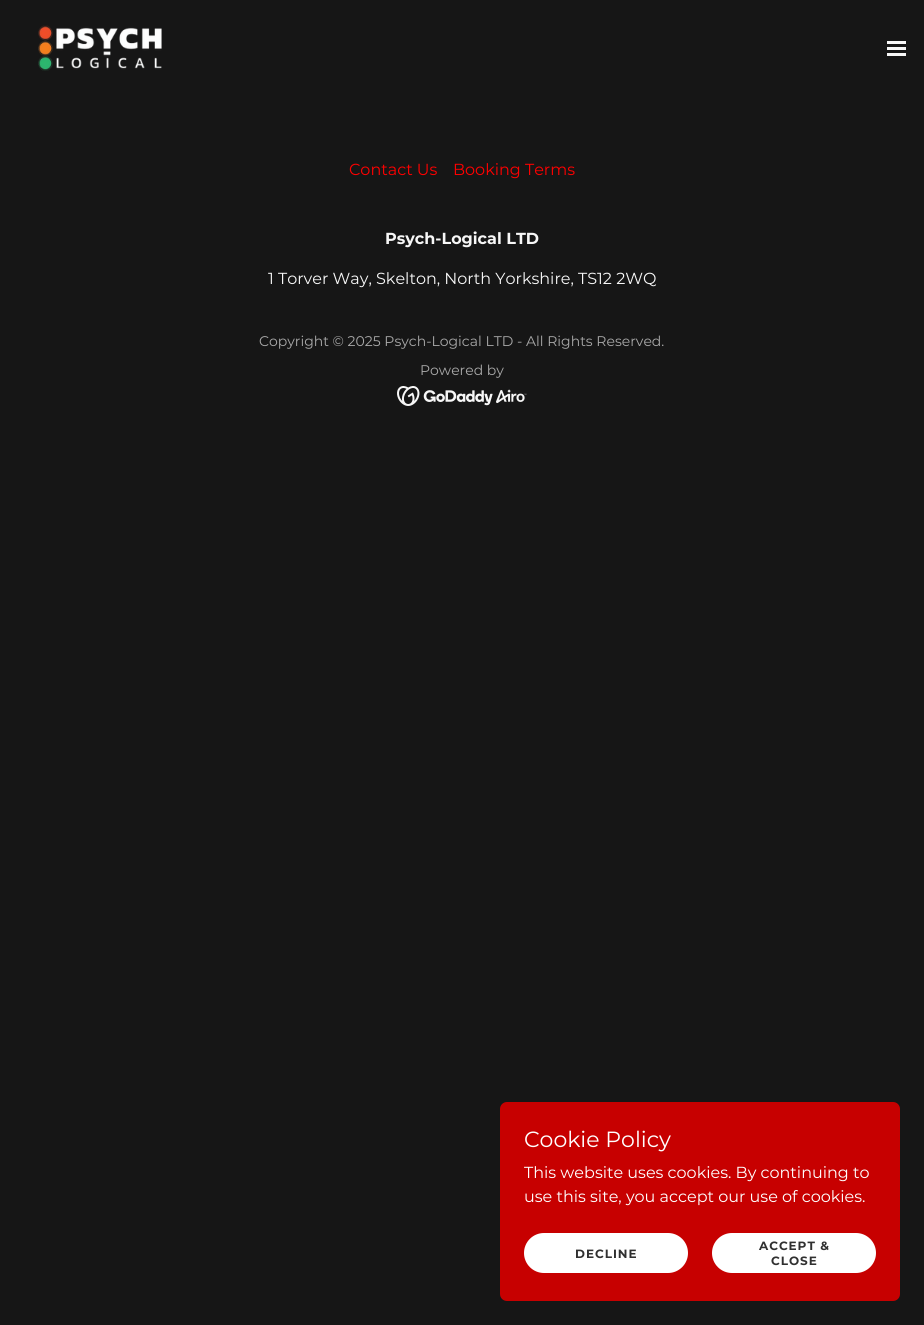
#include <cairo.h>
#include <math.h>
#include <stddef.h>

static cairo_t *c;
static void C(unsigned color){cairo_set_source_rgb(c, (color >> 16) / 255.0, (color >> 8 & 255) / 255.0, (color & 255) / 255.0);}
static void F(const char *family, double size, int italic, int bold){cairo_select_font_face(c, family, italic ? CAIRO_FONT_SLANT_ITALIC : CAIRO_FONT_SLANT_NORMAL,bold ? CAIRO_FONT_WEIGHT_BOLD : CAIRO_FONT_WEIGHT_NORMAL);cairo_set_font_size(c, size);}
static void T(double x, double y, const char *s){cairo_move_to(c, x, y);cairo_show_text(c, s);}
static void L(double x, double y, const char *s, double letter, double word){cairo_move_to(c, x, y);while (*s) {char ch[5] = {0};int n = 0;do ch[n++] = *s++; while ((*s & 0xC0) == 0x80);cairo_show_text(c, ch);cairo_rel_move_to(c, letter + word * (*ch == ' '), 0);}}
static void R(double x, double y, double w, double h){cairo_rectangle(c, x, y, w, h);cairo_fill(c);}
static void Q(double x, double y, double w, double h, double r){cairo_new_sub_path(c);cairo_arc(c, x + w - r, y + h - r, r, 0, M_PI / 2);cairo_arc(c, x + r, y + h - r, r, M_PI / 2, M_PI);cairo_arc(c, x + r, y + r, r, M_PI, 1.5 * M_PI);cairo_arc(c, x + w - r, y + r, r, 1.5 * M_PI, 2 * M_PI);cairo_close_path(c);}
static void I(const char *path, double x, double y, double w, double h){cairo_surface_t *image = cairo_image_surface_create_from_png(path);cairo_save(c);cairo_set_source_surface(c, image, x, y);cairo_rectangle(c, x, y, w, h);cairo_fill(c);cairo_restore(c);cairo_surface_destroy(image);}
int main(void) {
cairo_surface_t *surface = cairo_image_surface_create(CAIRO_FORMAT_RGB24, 924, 1325);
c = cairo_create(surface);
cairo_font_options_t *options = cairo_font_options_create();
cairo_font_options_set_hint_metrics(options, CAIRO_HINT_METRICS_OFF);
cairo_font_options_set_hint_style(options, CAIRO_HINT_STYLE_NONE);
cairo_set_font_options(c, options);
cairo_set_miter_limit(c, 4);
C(0x161616);
cairo_paint(c);
I("1.png",38,25,124,46);
C(0xf7f7f7);
R(887,41,19,3);
R(887,47,19,3);
R(887,53,19,3);
F("Montserrat",16,0,0);
C(0xff0000);
T(349,175,"Contact Us");
T(453,175,"Booking Terms");
F("Montserrat",16,0,1);
C(0xf7f7f7);
T(385,244,"Psych-Logical LTD");
F("Montserrat",16,0,0);
T(268,284,"1 Torver Way, Skelton, North Yorkshire, TS12 2WQ");
F("Montserrat",14,0,0);
C(0xa9a9a9);
T(259,346,"Copyright © 2025 Psych-Logical LTD - All Rights Reserved.");
T(420,375,"Powered by");
I("2.png",397,386,130,20);
C(0xc70000);
Q(500,1102,400,199,7);
cairo_fill(c);
F("Montserrat",22,0,0);
C(0xffffff);
T(524,1147,"Cookie Policy");
F("Montserrat",16,0,0);
T(524,1178,"This website uses cookies. By continuing to");
T(524,1202,"use this site, you accept our use of cookies.");
Q(524,1233,164,40,20);
cairo_fill(c);
F("Montserrat",12,0,1);
C(0x303030);
L(575,1258,"DECLINE",1,0);
C(0xffffff);
Q(712,1233,164,40,20);
cairo_fill(c);
C(0x303030);
L(759,1250,"ACCEPT &",1,0);
L(771,1265,"CLOSE",1,0);
cairo_surface_write_to_png(surface, "o.png");
cairo_font_options_destroy(options);
cairo_destroy(c);
cairo_surface_destroy(surface);
return 0;
}
